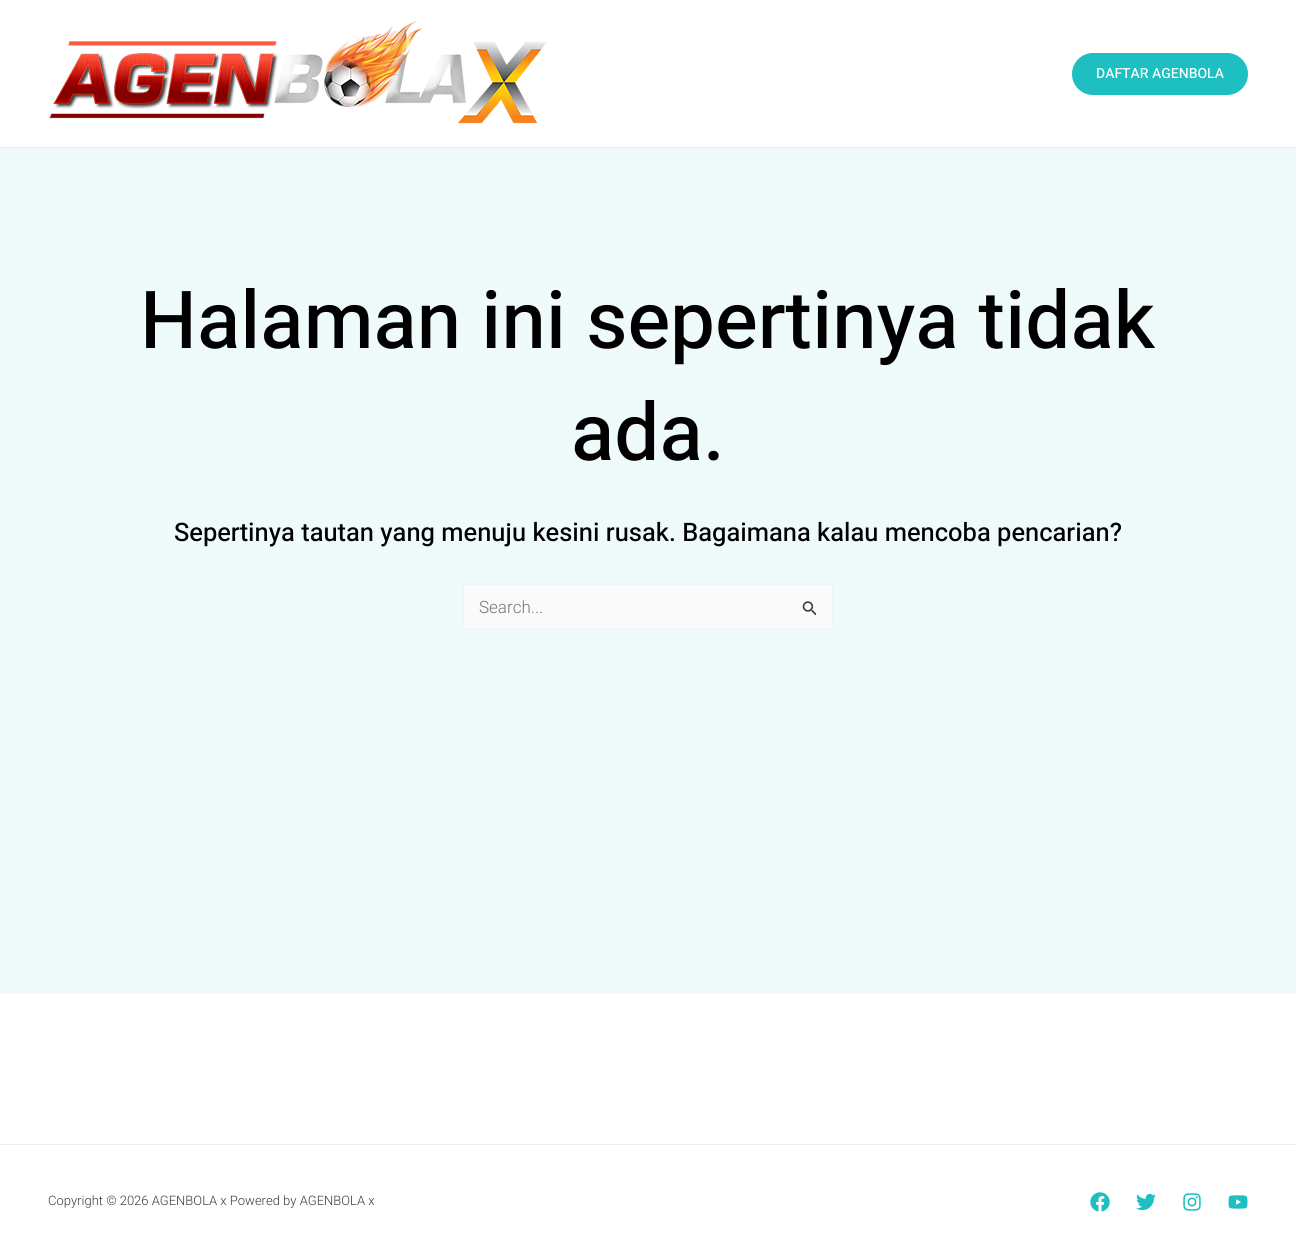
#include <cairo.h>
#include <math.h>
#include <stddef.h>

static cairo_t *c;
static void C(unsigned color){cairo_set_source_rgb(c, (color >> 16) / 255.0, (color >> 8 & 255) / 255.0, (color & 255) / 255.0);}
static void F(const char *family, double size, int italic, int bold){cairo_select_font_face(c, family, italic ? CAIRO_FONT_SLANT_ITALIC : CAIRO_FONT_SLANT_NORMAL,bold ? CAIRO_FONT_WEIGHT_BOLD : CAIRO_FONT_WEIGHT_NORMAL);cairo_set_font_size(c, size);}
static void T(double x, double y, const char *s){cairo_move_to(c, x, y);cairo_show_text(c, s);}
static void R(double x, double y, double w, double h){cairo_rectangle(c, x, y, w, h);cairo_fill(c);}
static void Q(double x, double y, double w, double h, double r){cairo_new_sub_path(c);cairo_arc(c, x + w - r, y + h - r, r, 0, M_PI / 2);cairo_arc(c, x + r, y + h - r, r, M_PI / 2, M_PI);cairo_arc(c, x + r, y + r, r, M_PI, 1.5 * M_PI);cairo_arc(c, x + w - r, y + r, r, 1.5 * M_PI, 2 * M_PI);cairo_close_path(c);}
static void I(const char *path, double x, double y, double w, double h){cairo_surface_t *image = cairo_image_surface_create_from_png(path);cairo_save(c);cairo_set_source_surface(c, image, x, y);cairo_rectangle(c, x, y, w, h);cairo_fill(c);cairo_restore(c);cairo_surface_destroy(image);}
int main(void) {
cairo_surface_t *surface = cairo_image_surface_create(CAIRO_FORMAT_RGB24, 1296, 1257);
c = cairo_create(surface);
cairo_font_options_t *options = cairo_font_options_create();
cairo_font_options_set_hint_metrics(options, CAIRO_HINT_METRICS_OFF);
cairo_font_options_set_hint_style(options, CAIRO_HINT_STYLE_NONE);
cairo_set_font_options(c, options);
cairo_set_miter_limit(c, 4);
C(0xeffafa);
cairo_paint(c);
C(0xffffff);
R(0,0,1296,147);
C(0xeaeaea);
R(0,147,1296,1);
I("1.png",49,20,498,104);
C(0x1dbfc1);
Q(1073,54,174,40,20);
cairo_fill_preserve(c);
cairo_stroke(c);
F("Heebo Medium",14,0,0);
C(0xffffff);
T(1096,78,"DAFTAR AGENBOLA");
F("Heebo Medium",80,0,0);
C(0x000000);
T(140,348,"Halaman ini sepertinya tidak");
T(571,460,"ada.");
F("Heebo Medium",25.5,0,0);
T(174,541,"Sepertinya tautan yang menuju kesini rusak. Bagaimana kalau mencoba pencarian?");
C(0xfafafa);
Q(463.5,584.5,369,45,1.5);
cairo_fill_preserve(c);
C(0xf2f2f2);
cairo_set_line_width(c,1);
cairo_stroke(c);
F("Roboto Light",17,0,0);
C(0x757575);
T(479,613,"Search...");
I("2.png",802,601,14,15);
C(0xffffff);
R(0,994,1296,150);
R(0,1145,1296,112);
C(0xededed);
R(0,1144,1296,1);
F("Roboto Light",13,0,0);
C(0x3a3a3a);
T(48,1205,"Copyright © 2026 AGENBOLA x Powered by AGENBOLA x");
I("3.png",1090,1192,20,20);
I("4.png",1136,1193,20,18);
I("5.png",1183,1193,18,18);
I("6.png",1228,1195,20,14);
cairo_surface_write_to_png(surface, "o.png");
cairo_font_options_destroy(options);
cairo_destroy(c);
cairo_surface_destroy(surface);
return 0;
}
